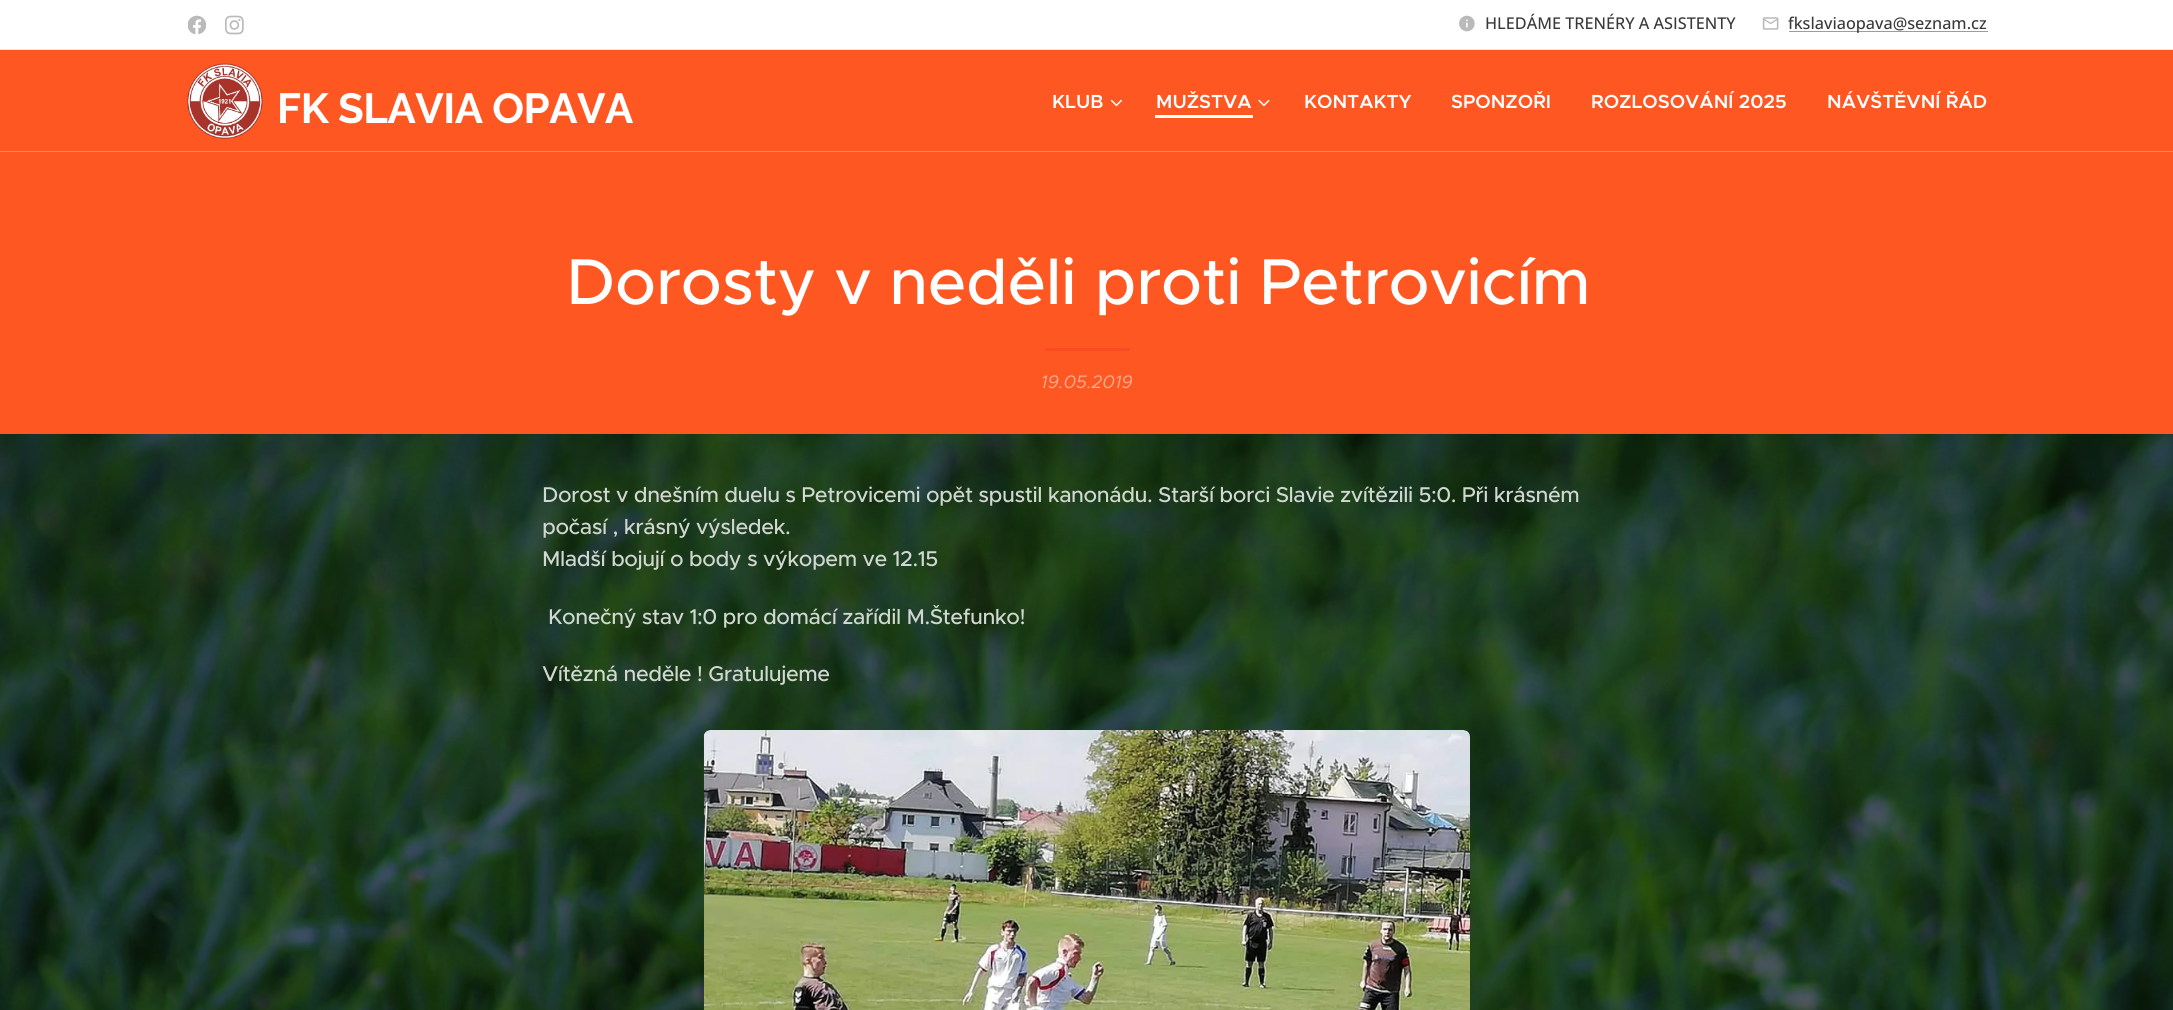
#include <cairo.h>
#include <math.h>
#include <stddef.h>

static cairo_t *c;
static void C(unsigned color){cairo_set_source_rgb(c, (color >> 16) / 255.0, (color >> 8 & 255) / 255.0, (color & 255) / 255.0);}
static void F(const char *family, double size, int italic, int bold){cairo_select_font_face(c, family, italic ? CAIRO_FONT_SLANT_ITALIC : CAIRO_FONT_SLANT_NORMAL,bold ? CAIRO_FONT_WEIGHT_BOLD : CAIRO_FONT_WEIGHT_NORMAL);cairo_set_font_size(c, size);}
static void T(double x, double y, const char *s){cairo_move_to(c, x, y);cairo_show_text(c, s);}
static void L(double x, double y, const char *s, double letter, double word){cairo_move_to(c, x, y);while (*s) {char ch[5] = {0};int n = 0;do ch[n++] = *s++; while ((*s & 0xC0) == 0x80);cairo_show_text(c, ch);cairo_rel_move_to(c, letter + word * (*ch == ' '), 0);}}
static void R(double x, double y, double w, double h){cairo_rectangle(c, x, y, w, h);cairo_fill(c);}
static void I(const char *path, double x, double y, double w, double h){cairo_surface_t *image = cairo_image_surface_create_from_png(path);cairo_save(c);cairo_set_source_surface(c, image, x, y);cairo_rectangle(c, x, y, w, h);cairo_fill(c);cairo_restore(c);cairo_surface_destroy(image);}
int main(void) {
cairo_surface_t *surface = cairo_image_surface_create(CAIRO_FORMAT_RGB24, 2173, 1010);
c = cairo_create(surface);
cairo_font_options_t *options = cairo_font_options_create();
cairo_font_options_set_hint_metrics(options, CAIRO_HINT_METRICS_OFF);
cairo_font_options_set_hint_style(options, CAIRO_HINT_STYLE_NONE);
cairo_set_font_options(c, options);
cairo_set_miter_limit(c, 4);
C(0xffffff);
cairo_paint(c);
I("1.png",188,15,18,20);
I("2.png",225,15,19,20);
I("3.png",1459,15,16,17);
F("Open Sans Medium",16.25,0,0);
C(0x393939);
T(1485,29,"HLEDÁME TRENÉRY A ASISTENTY");
I("4.png",1762,17,17,13);
C(0x9c9c9c);
R(1789,31,199,1);
C(0x393939);
T(1788,29,"fkslaviaopava@seznam.cz");
C(0xe8e8e8);
R(0,49,2173,1);
C(0xff5722);
R(0,50,2173,384);
I("5.png",187,63,76,76);
F("Raleway",42,0,1);
C(0xffffff);
L(277,123,"FK SLAVIA OPAVA",-.43,0);
F("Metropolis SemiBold",19,0,0);
T(1052,108,"KLUB");
I("6.png",1110,99,12,8);
T(1156,108,"MUŽSTVA");
R(1155,115,98,3);
I("7.png",1258,99,12,8);
T(1304,108,"KONTAKTY");
T(1451,108,"SPONZOŘI");
T(1591,108,"ROZLOSOVÁNÍ 2025");
T(1827,108,"NÁVŠTĚVNÍ ŘÁD");
C(0xff8964);
R(0,151,2173,1);
F("Metropolis Medium",65,0,0);
C(0xffffff);
L(566,304,"Dorosty v neděli proti Petrovicím",-.43,0);
C(0xfa4b24);
R(1045,348,85,3);
F("Metropolis",18.25,1,0);
C(0xffab91);
T(1041,388,"19.05.2019");
I("8.png",0,433,2173,577);
F("Metropolis Medium",21.5,0,0);
C(0xd1d7d1);
L(542,502,"Dorost v dnešním duelu s Petrovicemi opět spustil kanonádu. Starší borci Slavie zvítězili 5:0. Při krásném",-.43,0);
L(542,534,"počasí , krásný výsledek.",-.43,0);
L(542,566,"Mladší bojují o body s výkopem ve 12.15",-.43,0);
L(548,624,"Konečný stav 1:0 pro domácí zařídil M.Štefunko!",-.43,0);
L(542,681,"Vítězná neděle ! Gratulujeme",-.43,0);
I("9.png",703,730,767,280);
cairo_surface_write_to_png(surface, "o.png");
cairo_font_options_destroy(options);
cairo_destroy(c);
cairo_surface_destroy(surface);
return 0;
}
